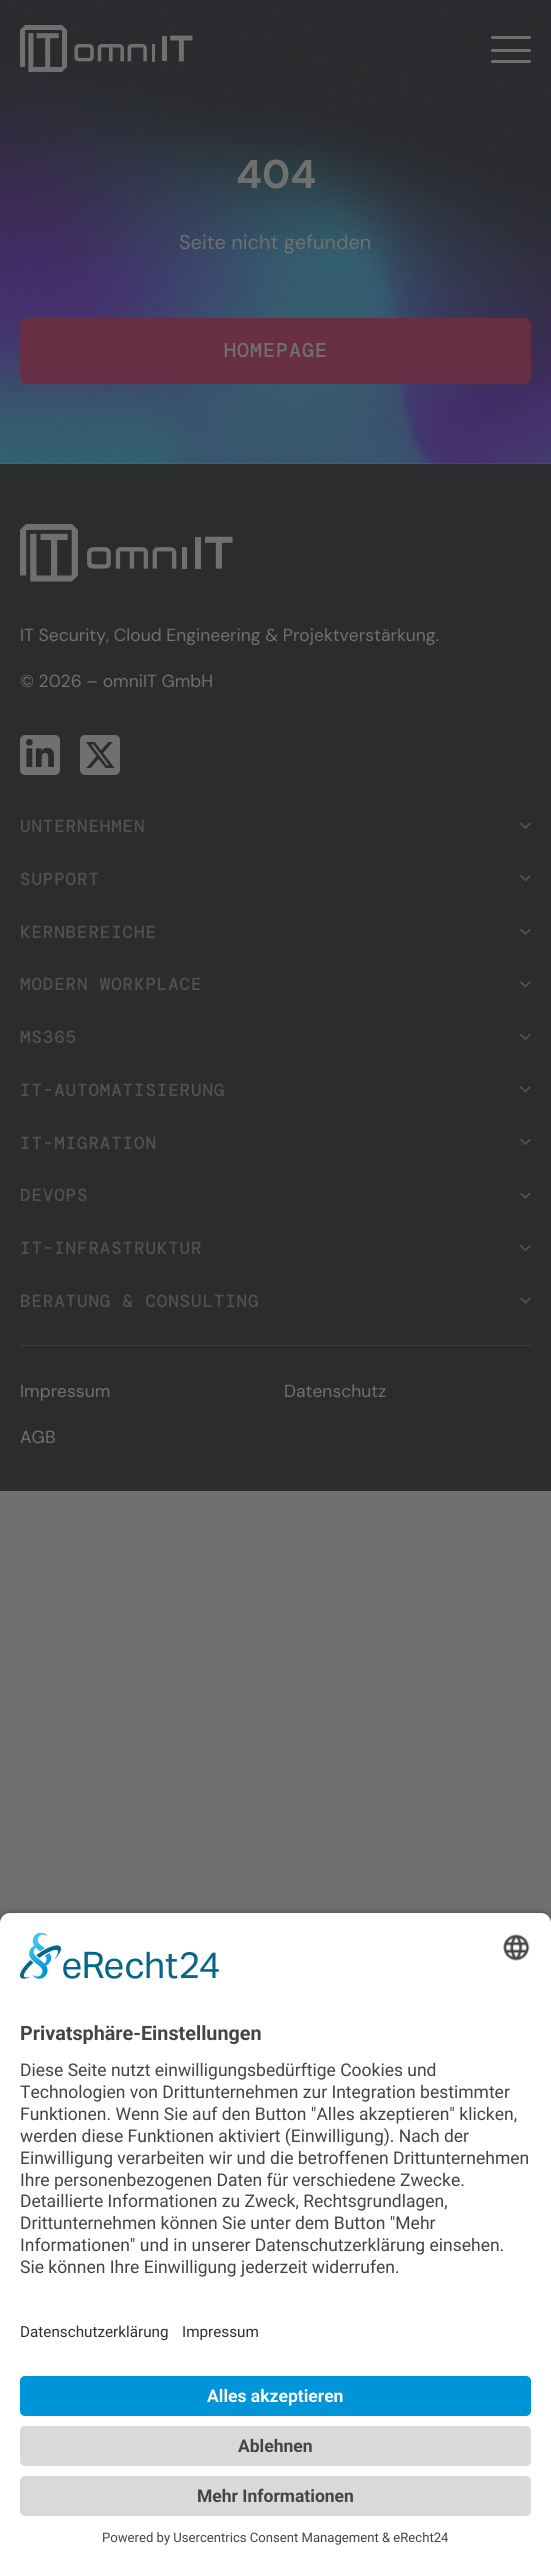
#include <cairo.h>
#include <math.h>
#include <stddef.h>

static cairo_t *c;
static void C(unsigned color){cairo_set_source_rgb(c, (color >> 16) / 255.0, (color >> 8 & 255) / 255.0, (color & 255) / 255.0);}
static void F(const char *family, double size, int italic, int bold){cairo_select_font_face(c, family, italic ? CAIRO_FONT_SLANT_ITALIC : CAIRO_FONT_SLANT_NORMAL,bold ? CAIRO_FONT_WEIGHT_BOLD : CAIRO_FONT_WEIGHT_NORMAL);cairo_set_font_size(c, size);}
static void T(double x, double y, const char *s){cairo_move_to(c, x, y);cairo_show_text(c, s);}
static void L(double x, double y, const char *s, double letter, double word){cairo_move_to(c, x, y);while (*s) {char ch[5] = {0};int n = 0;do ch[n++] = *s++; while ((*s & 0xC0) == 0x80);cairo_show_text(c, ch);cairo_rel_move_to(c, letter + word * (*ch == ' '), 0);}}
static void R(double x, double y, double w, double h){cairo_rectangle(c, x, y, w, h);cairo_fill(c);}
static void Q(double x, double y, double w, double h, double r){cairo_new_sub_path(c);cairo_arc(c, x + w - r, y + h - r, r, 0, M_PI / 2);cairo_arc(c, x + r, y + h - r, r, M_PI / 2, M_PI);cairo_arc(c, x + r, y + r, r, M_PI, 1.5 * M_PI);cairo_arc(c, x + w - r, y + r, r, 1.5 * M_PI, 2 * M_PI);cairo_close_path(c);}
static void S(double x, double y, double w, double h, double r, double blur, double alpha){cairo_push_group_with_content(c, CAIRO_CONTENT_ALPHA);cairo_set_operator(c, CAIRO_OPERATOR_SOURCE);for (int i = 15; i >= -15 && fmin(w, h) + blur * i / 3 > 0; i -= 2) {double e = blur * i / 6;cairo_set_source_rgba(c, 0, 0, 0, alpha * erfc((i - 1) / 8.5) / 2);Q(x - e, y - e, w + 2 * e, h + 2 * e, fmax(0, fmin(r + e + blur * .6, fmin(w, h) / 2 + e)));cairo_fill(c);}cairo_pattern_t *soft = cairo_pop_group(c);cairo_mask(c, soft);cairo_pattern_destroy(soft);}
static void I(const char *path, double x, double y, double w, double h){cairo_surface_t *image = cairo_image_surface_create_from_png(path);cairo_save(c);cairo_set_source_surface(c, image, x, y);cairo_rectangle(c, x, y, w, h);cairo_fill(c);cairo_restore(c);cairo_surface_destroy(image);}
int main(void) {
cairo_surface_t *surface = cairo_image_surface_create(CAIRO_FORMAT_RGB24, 551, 2566);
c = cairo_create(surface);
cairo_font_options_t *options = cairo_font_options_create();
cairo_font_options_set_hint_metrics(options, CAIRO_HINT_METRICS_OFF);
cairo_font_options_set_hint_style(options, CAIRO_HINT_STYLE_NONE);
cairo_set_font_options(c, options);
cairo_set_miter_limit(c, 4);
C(0x707070);
cairo_paint(c);
I("2.png",0,0,551,464);
I("1.png",20,25,173,47);
C(0x707070);
Q(491,36,40,3,1.5);
cairo_fill(c);
Q(491,49,40,3,1.5);
cairo_fill(c);
Q(491,60,40,3,1.5);
cairo_fill(c);
F("DM Sans",40,0,1);
T(236,188,"404");
F("DM Sans",20,0,0);
T(179,249,"Seite nicht gefunden");
C(0x682e43);
Q(20.5,318.5,510,65,7.5);
cairo_fill_preserve(c);
cairo_set_line_width(c,1);
cairo_stroke(c);
F("DM Mono Medium",20,0,0);
C(0x707070);
L(224,357,"HOMEPAGE",1,0);
C(0x2a2c2e);
R(0,464,551,1027);
I("3.png",20,524,213,58);
F("DM Sans",17.5,0,0);
C(0x707070);
T(20,641,"IT Security, Cloud Engineering & Projektverstärkung.");
T(20,687,"© 2026 – omniIT GmbH");
Q(20,735,40,40,5);
cairo_fill(c);
I("4.png",26,739,28,28);
Q(80,735,40,40,5);
cairo_fill(c);
I("5.png",85,742,30,26);
F("DM Mono Medium",17.5,0,0);
C(0x515153);
L(20,832,"UNTERNEHMEN",.9,0);
I("6.png",520,823,11,6);
L(20,885,"SUPPORT",.9,0);
I("7.png",520,875,11,6);
L(20,938,"KERNBEREICHE",.9,0);
I("8.png",520,929,11,6);
L(20,990,"MODERN WORKPLACE",.9,0);
I("9.png",520,981,11,7);
L(20,1043,"MS365",.9,0);
I("8.png",520,1034,11,6);
L(20,1096,"IT-AUTOMATISIERUNG",.9,0);
I("9.png",520,1086,11,7);
L(20,1149,"IT-MIGRATION",.9,0);
I("8.png",520,1139,11,6);
L(20,1201,"DEVOPS",.9,0);
I("6.png",520,1193,11,6);
L(20,1254,"IT-INFRASTRUKTUR",.9,0);
I("7.png",520,1245,11,6);
L(20,1307,"BERATUNG & CONSULTING",.9,0);
I("6.png",520,1298,11,6);
C(0x3c3d3f);
R(20,1345,511,1);
F("DM Sans",17.5,0,0);
C(0x707070);
T(20,1397,"Impressum");
T(284,1397,"Datenschutz");
T(20,1443,"AGB");
C(0x000000);
S(0,1916,551,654,10,4.5,.8);
C(0xffffff);
cairo_new_path(c);
cairo_move_to(c,10,1913);
cairo_line_to(c,541,1913);
cairo_curve_to(c,546.5,1913,551,1917.5,551,1923);
cairo_line_to(c,551,2304);
cairo_line_to(c,0,2304);
cairo_line_to(c,0,1923);
cairo_curve_to(c,0,1917.5,4.5,1913,10,1913);
cairo_close_path(c);
cairo_fill(c);
I("10.png",20,1933,199,46);
I("11.png",503,1934,27,27);
F("Roboto",19.75,0,1);
C(0x444444);
T(20,2040,"Privatsphäre-Einstellungen");
F("Roboto",17.5,0,0);
T(20,2076,"Diese Seite nutzt einwilligungsbedürftige Cookies und");
T(20,2098,"Technologien von Drittunternehmen zur Integration bestimmter");
T(20,2120,"Funktionen. Wenn Sie auf den Button \"Alles akzeptieren\" klicken,");
T(20,2142,"werden diese Funktionen aktiviert (Einwilligung). Nach der");
T(20,2164,"Einwilligung verarbeiten wir und die betroffenen Drittunternehmen");
T(20,2186,"Ihre personenbezogenen Daten für verschiedene Zwecke.");
T(20,2207,"Detaillierte Informationen zu Zweck, Rechtsgrundlagen,");
T(20,2229,"Drittunternehmen können Sie unter dem Button \"Mehr");
T(20,2251,"Informationen\" und in unserer Datenschutzerklärung einsehen.");
T(20,2273,"Sie können Ihre Einwilligung jederzeit widerrufen.");
C(0xffffff);
R(0,2304,551,262);
F("Roboto",15.25,0,0);
C(0x303030);
T(20,2337,"Datenschutzerklärung");
T(182,2337,"Impressum");
C(0x0094d8);
Q(20,2376,511,40,5);
cairo_fill(c);
F("Roboto",17.5,0,1);
C(0xffffff);
T(207,2402,"Alles akzeptieren");
C(0xd9d9d9);
Q(20,2426,511,40,5);
cairo_fill(c);
C(0x444444);
T(238,2452,"Ablehnen");
C(0xd9d9d9);
Q(20,2476,511,40,5);
cairo_fill(c);
C(0x444444);
T(197,2502,"Mehr Informationen");
F("Roboto",13.1,0,0);
T(102,2542,"Powered by Usercentrics Consent Management & eRecht24");
cairo_surface_write_to_png(surface, "o.png");
cairo_font_options_destroy(options);
cairo_destroy(c);
cairo_surface_destroy(surface);
return 0;
}
